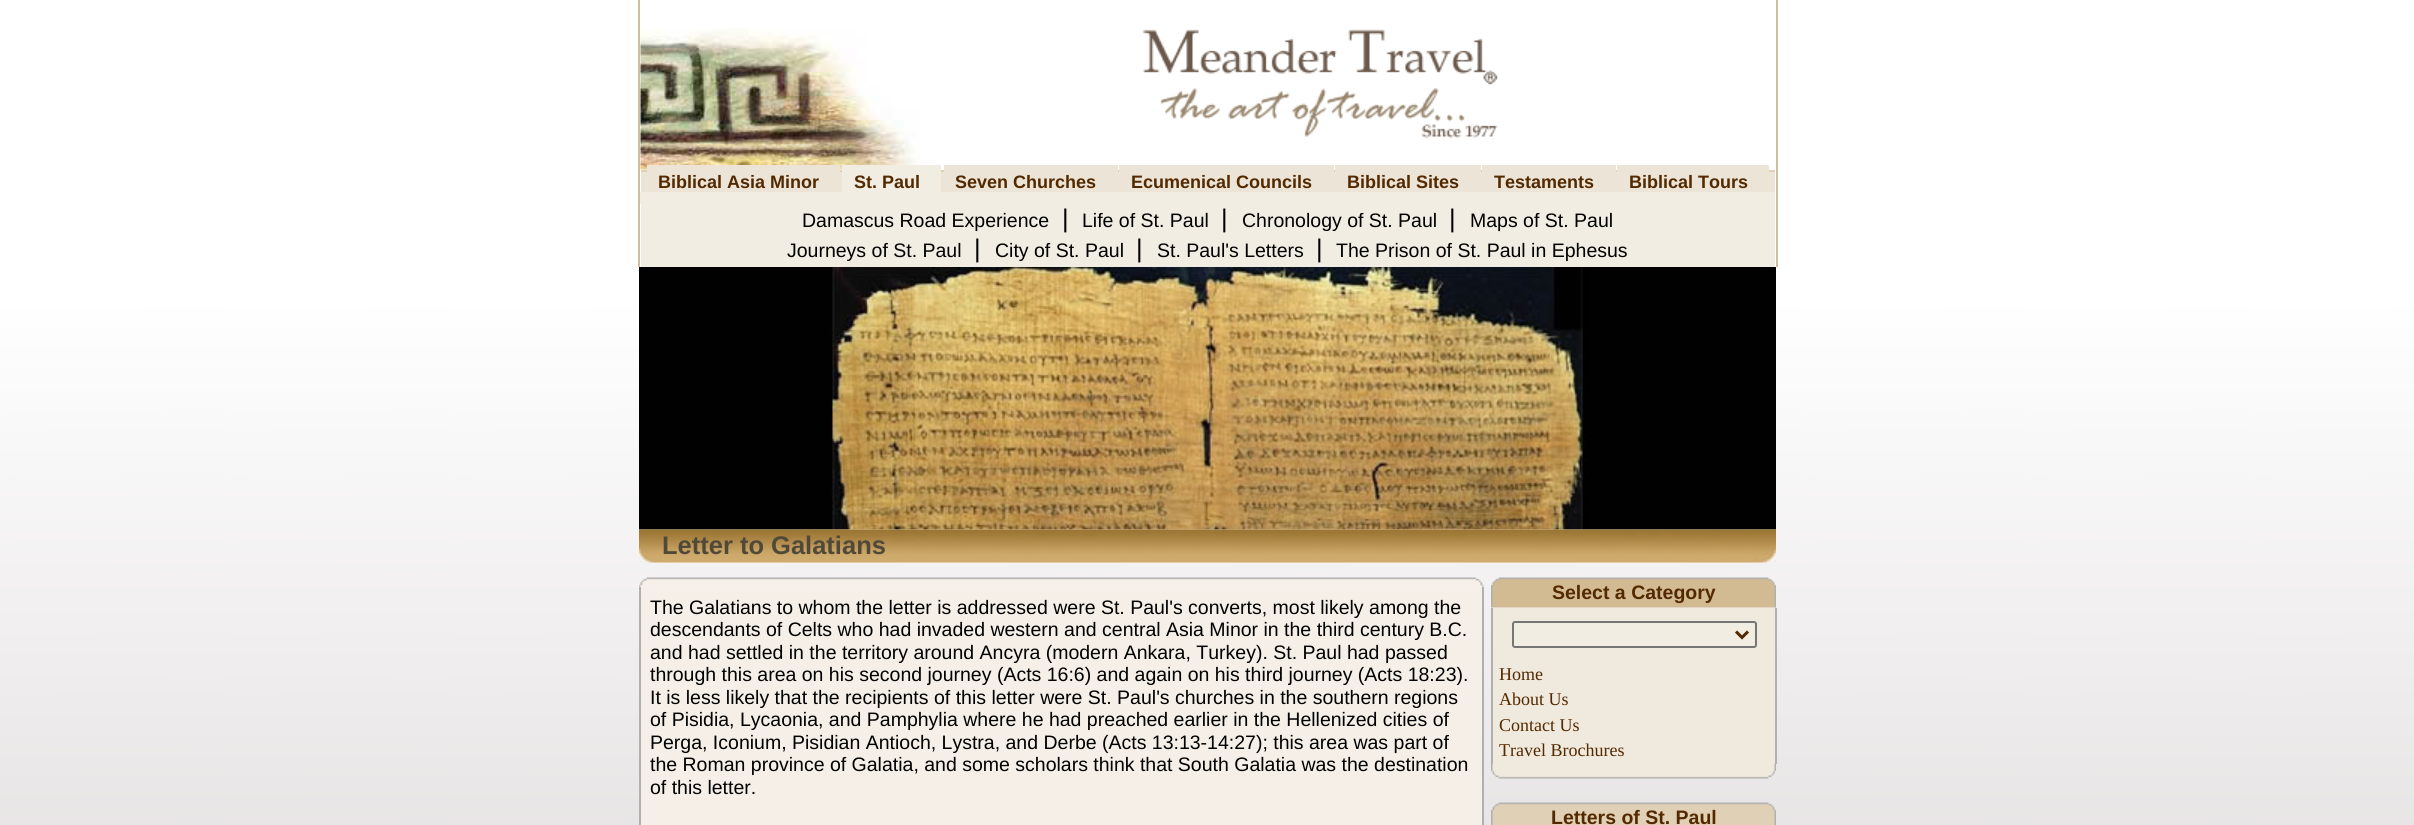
#include <cairo.h>
#include <math.h>
#include <stddef.h>

static cairo_t *c;
static void C(unsigned color){cairo_set_source_rgb(c, (color >> 16) / 255.0, (color >> 8 & 255) / 255.0, (color & 255) / 255.0);}
static void F(const char *family, double size, int italic, int bold){cairo_select_font_face(c, family, italic ? CAIRO_FONT_SLANT_ITALIC : CAIRO_FONT_SLANT_NORMAL,bold ? CAIRO_FONT_WEIGHT_BOLD : CAIRO_FONT_WEIGHT_NORMAL);cairo_set_font_size(c, size);}
static void T(double x, double y, const char *s){cairo_move_to(c, x, y);cairo_show_text(c, s);}
static void R(double x, double y, double w, double h){cairo_rectangle(c, x, y, w, h);cairo_fill(c);}
static void Q(double x, double y, double w, double h, double r){cairo_new_sub_path(c);cairo_arc(c, x + w - r, y + h - r, r, 0, M_PI / 2);cairo_arc(c, x + r, y + h - r, r, M_PI / 2, M_PI);cairo_arc(c, x + r, y + r, r, M_PI, 1.5 * M_PI);cairo_arc(c, x + w - r, y + r, r, 1.5 * M_PI, 2 * M_PI);cairo_close_path(c);}
static void I(const char *path, double x, double y, double w, double h){cairo_surface_t *image = cairo_image_surface_create_from_png(path);cairo_save(c);cairo_set_source_surface(c, image, x, y);cairo_rectangle(c, x, y, w, h);cairo_fill(c);cairo_restore(c);cairo_surface_destroy(image);}
int main(void) {
cairo_surface_t *surface = cairo_image_surface_create(CAIRO_FORMAT_RGB24, 2414, 825);
c = cairo_create(surface);
cairo_font_options_t *options = cairo_font_options_create();
cairo_font_options_set_hint_metrics(options, CAIRO_HINT_METRICS_OFF);
cairo_font_options_set_hint_style(options, CAIRO_HINT_STYLE_NONE);
cairo_set_font_options(c, options);
cairo_set_miter_limit(c, 4);
C(0xffffff);
cairo_paint(c);
I("1.png",0,0,2414,825);
C(0xcec09e);
R(1776,0,2,267);
R(638,0,2,267);
I("2.png",640,28,280,142);
I("3.png",1142,29,356,110);
C(0xece4d7);
R(641,172,1134,20);
C(0xe0d0b6);
R(641,170,1134,2);
F("Liberation Sans",18,0,1);
C(0x532900);
T(658,188,"Biblical Asia Minor");
C(0xece4d7);
R(647,165,193,7);
C(0xf2ede3);
R(842,165,99,27);
C(0x532900);
T(854,188,"St. Paul");
T(955,188,"Seven Churches");
C(0xece4d7);
R(944,165,174,7);
C(0x532900);
T(1131,188,"Ecumenical Councils");
C(0xece4d7);
R(1119,165,215,7);
C(0x532900);
T(1347,188,"Biblical Sites");
C(0xece4d7);
R(1335,165,146,7);
C(0x532900);
T(1494,188,"Testaments");
C(0xece4d7);
R(1482,165,134,7);
C(0x532900);
T(1629,188,"Biblical Tours");
C(0xece4d7);
R(1617,165,152,7);
C(0xf2ede3);
R(640,192,1135,12);
R(641,204,1134,63);
F("Liberation Sans",19.5,0,0);
C(0x000000);
T(802,227,"Damascus Road Experience");
F("Liberation Sans",25.5,0,0);
T(1062,227,"|");
F("Liberation Sans",19.5,0,0);
T(1082,227,"Life of St. Paul");
F("Liberation Sans",25.5,0,0);
T(1221,227,"|");
F("Liberation Sans",19.5,0,0);
T(1242,227,"Chronology of St. Paul");
F("Liberation Sans",25.5,0,0);
T(1449,227,"|");
F("Liberation Sans",19.5,0,0);
T(1470,227,"Maps of St. Paul");
T(787,257,"Journeys of St. Paul");
F("Liberation Sans",25.5,0,0);
T(974,257,"|");
F("Liberation Sans",19.5,0,0);
T(995,257,"City of St. Paul");
F("Liberation Sans",25.5,0,0);
T(1136,257,"|");
F("Liberation Sans",19.5,0,0);
T(1157,257,"St. Paul's Letters");
F("Liberation Sans",25.5,0,0);
T(1316,257,"|");
F("Liberation Sans",19.5,0,0);
T(1336,257,"The Prison of St. Paul in Ephesus");
I("4.png",639,267,1137,263);
I("5.png",639,529,1137,34);
F("Liberation Sans",25.5,0,1);
C(0x504939);
T(662,554,"Letter to Galatians");
I("6.png",639,577,845,10);
C(0xf5efe7);
R(641,587,841,238);
C(0xb0b0b0);
R(1482,587,2,238);
R(639,587,2,238);
F("Liberation Sans",19.5,0,0);
C(0x000000);
T(650,614,"The Galatians to whom the letter is addressed were St. Paul's converts, most likely among the");
T(650,636,"descendants of Celts who had invaded western and central Asia Minor in the third century B.C.");
T(650,659,"and had settled in the territory around Ancyra (modern Ankara, Turkey). St. Paul had passed");
T(650,681,"through this area on his second journey (Acts 16:6) and again on his third journey (Acts 18:23).");
T(650,704,"It is less likely that the recipients of this letter were St. Paul's churches in the southern regions");
T(650,726,"of Pisidia, Lycaonia, and Pamphylia where he had preached earlier in the Hellenized cities of");
T(650,749,"Perga, Iconium, Pisidian Antioch, Lystra, and Derbe (Acts 13:13-14:27); this area was part of");
T(650,771,"the Roman province of Galatia, and some scholars think that South Galatia was the destination");
T(650,794,"of this letter.");
I("7.png",1491,577,285,31);
F("Liberation Sans",19.5,0,1);
C(0x532900);
T(1552,599,"Select a Category");
C(0xf0e9dd);
R(1493,608,282,156);
C(0xb0b0b0);
R(1775,608,2,156);
R(1491,608,2,156);
C(0xf2ede3);
Q(1513,622,243,25,2);
cairo_fill_preserve(c);
C(0x767676);
cairo_stroke(c);
cairo_new_path(c);
cairo_move_to(c,1736,631.5);
cairo_line_to(c,1742,637.5);
cairo_line_to(c,1748,631.5);
C(0x532900);
cairo_set_line_width(c,3);
cairo_stroke(c);
F("Liberation Serif",18,0,0);
T(1499,680,"Home");
T(1499,705,"About Us");
T(1499,731,"Contact Us");
T(1499,756,"Travel Brochures");
I("8.png",1491,763,285,16);
I("9.png",1491,802,285,23);
F("Liberation Sans",19.5,0,1);
T(1551,824,"Letters of St. Paul");
cairo_surface_write_to_png(surface, "o.png");
cairo_font_options_destroy(options);
cairo_destroy(c);
cairo_surface_destroy(surface);
return 0;
}
